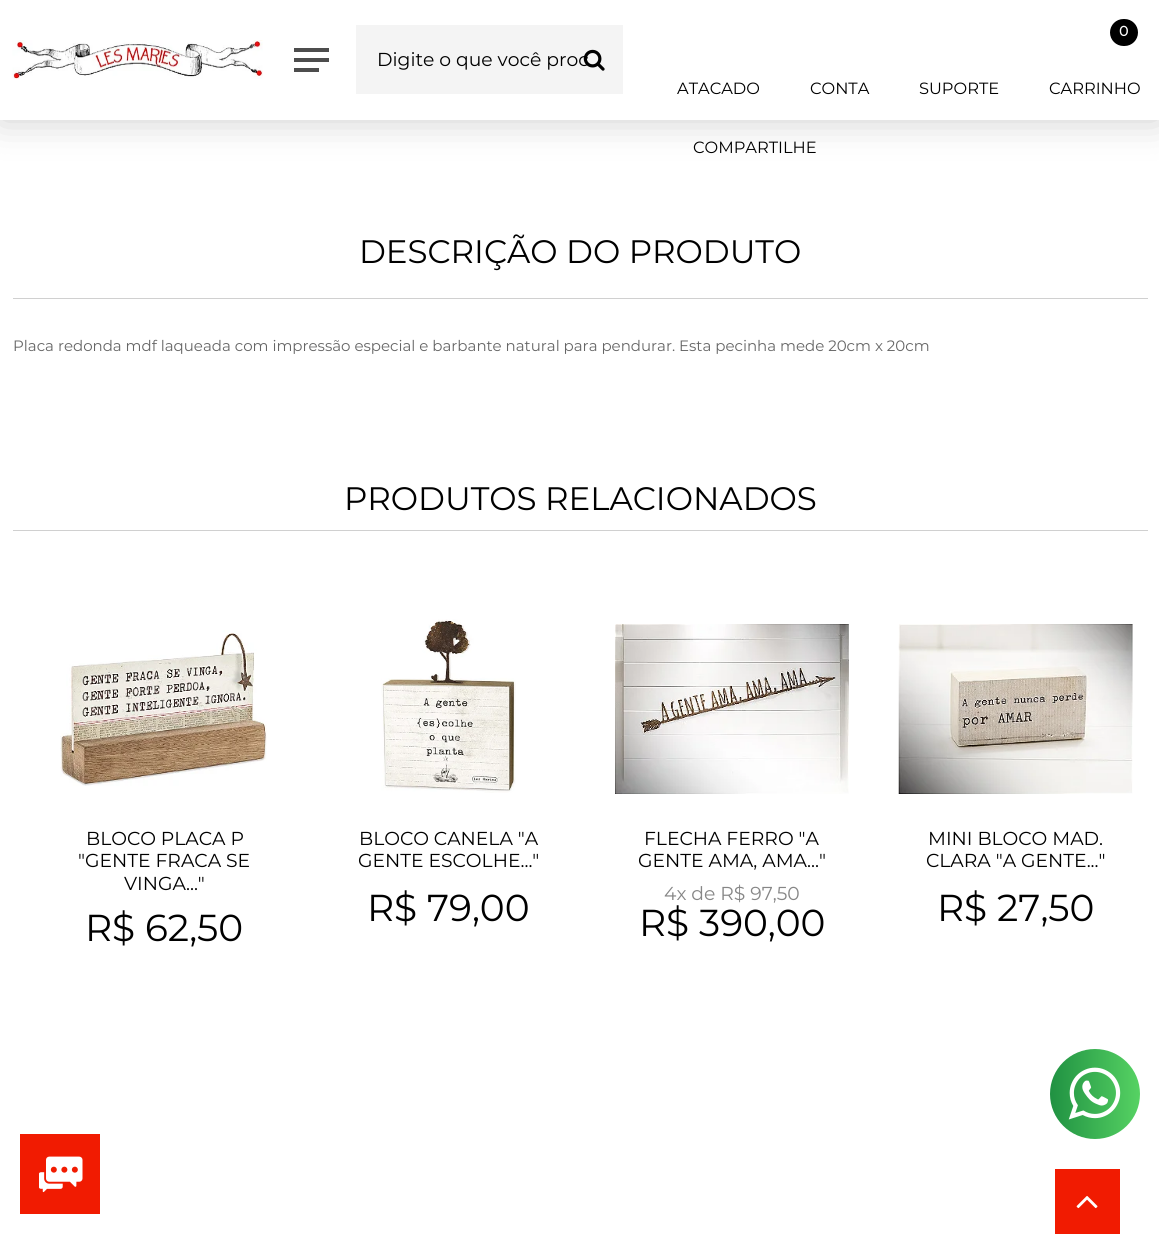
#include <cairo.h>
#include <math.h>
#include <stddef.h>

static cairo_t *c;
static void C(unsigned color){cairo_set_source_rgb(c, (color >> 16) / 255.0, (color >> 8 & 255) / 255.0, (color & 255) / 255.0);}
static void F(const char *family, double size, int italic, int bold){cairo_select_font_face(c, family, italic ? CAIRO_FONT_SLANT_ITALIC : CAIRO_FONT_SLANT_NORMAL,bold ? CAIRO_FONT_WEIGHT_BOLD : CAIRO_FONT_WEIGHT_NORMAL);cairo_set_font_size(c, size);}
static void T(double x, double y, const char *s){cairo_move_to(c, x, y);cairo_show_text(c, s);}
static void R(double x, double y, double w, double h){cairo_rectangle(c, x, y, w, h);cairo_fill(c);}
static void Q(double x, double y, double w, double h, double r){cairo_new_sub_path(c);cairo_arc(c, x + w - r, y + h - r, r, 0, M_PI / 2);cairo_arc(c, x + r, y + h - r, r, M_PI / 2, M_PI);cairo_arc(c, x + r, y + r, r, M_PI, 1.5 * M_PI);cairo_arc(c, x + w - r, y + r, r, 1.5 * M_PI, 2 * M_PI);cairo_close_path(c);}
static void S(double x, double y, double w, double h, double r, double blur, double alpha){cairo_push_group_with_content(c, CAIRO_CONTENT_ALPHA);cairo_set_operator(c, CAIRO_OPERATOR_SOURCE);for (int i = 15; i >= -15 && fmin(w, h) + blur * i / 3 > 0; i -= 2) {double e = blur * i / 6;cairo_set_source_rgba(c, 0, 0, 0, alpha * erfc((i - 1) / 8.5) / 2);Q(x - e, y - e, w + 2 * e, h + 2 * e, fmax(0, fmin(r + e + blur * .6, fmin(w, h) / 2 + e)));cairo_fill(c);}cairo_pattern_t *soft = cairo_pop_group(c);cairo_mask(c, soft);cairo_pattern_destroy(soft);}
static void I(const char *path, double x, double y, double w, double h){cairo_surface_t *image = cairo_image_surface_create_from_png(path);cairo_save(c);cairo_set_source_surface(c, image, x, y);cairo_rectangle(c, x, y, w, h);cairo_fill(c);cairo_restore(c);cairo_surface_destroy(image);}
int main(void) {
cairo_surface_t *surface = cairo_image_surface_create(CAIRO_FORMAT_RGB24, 1159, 1253);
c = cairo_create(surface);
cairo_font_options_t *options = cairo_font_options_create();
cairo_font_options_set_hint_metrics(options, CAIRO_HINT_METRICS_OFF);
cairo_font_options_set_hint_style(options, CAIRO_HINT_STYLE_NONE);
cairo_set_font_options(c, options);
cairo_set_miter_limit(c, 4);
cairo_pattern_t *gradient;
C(0xffffff);
cairo_paint(c);
C(0x000000);
S(0,0,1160,120,0,19,.2);
C(0xffffff);
R(0,0,1159,120);
I("1.png",12,40,251,39);
C(0x4d4d4d);
R(294,48,35,4);
R(294,58,35,4);
R(294,68,25,4);
C(0xf4f4f4);
R(356,25,267,69);
F("Montserrat",18.75,0,0);
C(0x000000);
T(377,66,"Digite o que você proc");
I("2.png",583,49,22,22);
F("Montserrat",16.25,0,0);
T(677,94,"ATACADO");
T(810,94,"CONTA");
T(919,94,"SUPORTE");
Q(1110,19,28,27,13.5);
cairo_fill(c);
F("Montserrat",14,0,1);
C(0xffffff);
T(1119,36,"0");
F("Montserrat",16.25,0,0);
C(0x000000);
T(1049,94,"CARRINHO");
T(693,153,"COMPARTILHE");
C(0xd0d0d0);
R(13,298,1135,1);
F("Montserrat",32.5,0,0);
C(0x000000);
T(359,263,"DESCRIÇÃO DO PRODUTO");
F("Montserrat",15,0,0);
C(0x666666);
T(13,351,"Placa redonda mdf laqueada com impressão especial e barbante natural para pendurar. Esta pecinha mede 20cm x 20cm");
F("Montserrat",32.5,0,0);
C(0x000000);
T(344,510,"PRODUTOS RELACIONADOS");
C(0xd0d0d0);
R(13,530,1135,1);
I("3.png",60,630,207,156);
F("Montserrat",18.75,0,0);
C(0x000000);
T(86,845,"BLOCO PLACA P");
T(78,867,"\"GENTE FRACA SE");
T(124,890,"VINGA...\"");
F("Montserrat",37.5,0,0);
T(85,941,"R$ 62,50");
I("4.png",381,619,135,174);
F("Montserrat",18.75,0,0);
T(359,845,"BLOCO CANELA \"A");
T(358,867,"GENTE ESCOLHE...\"");
F("Montserrat",37.5,0,0);
T(367,921,"R$ 79,00");
I("5.png",615,624,234,170);
F("Montserrat",18.75,0,0);
T(644,845,"FLECHA FERRO \"A");
T(638,867,"GENTE AMA, AMA...\"");
C(0x868686);
T(664,900,"4x de R$ 97,50");
F("Montserrat",37.5,0,0);
C(0x000000);
T(639,936,"R$ 390,00");
I("6.png",898,624,235,170);
F("Montserrat",18.75,0,0);
T(928,845,"MINI BLOCO MAD.");
T(926,867,"CLARA \"A GENTE...\"");
F("Montserrat",37.5,0,0);
T(937,921,"R$ 27,50");
gradient = cairo_pattern_create_linear(1050,1094,1140,1094);
cairo_pattern_add_color_stop_rgba(gradient,0,0.125,0.569,0.259,1);
cairo_pattern_add_color_stop_rgba(gradient,1,0.337,0.824,0.388,1);
cairo_set_source(c,gradient);
cairo_pattern_destroy(gradient);
cairo_new_path(c);
cairo_arc(c,1095,1094,45,0,2 * M_PI);
cairo_fill(c);
I("7.png",1068,1067,53,53);
C(0xf11b01);
R(20,1134,80,80);
I("8.png",39,1156,44,37);
R(1055,1169,65,65);
I("9.png",1076,1196,22,13);
cairo_surface_write_to_png(surface, "o.png");
cairo_font_options_destroy(options);
cairo_destroy(c);
cairo_surface_destroy(surface);
return 0;
}
